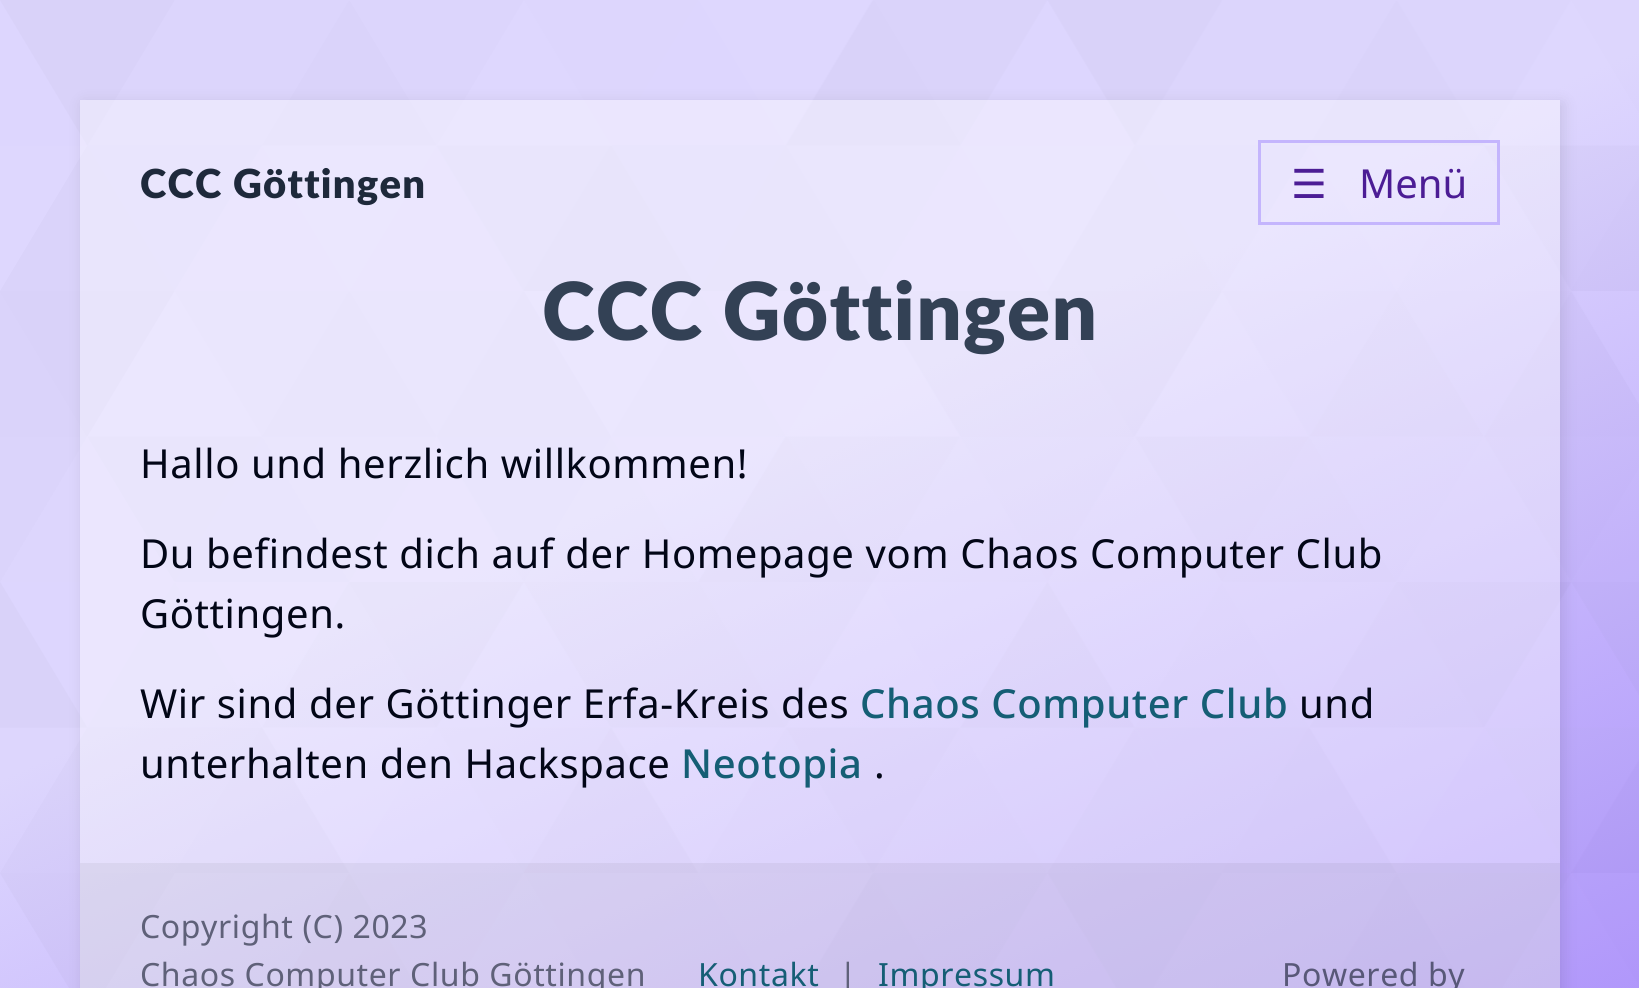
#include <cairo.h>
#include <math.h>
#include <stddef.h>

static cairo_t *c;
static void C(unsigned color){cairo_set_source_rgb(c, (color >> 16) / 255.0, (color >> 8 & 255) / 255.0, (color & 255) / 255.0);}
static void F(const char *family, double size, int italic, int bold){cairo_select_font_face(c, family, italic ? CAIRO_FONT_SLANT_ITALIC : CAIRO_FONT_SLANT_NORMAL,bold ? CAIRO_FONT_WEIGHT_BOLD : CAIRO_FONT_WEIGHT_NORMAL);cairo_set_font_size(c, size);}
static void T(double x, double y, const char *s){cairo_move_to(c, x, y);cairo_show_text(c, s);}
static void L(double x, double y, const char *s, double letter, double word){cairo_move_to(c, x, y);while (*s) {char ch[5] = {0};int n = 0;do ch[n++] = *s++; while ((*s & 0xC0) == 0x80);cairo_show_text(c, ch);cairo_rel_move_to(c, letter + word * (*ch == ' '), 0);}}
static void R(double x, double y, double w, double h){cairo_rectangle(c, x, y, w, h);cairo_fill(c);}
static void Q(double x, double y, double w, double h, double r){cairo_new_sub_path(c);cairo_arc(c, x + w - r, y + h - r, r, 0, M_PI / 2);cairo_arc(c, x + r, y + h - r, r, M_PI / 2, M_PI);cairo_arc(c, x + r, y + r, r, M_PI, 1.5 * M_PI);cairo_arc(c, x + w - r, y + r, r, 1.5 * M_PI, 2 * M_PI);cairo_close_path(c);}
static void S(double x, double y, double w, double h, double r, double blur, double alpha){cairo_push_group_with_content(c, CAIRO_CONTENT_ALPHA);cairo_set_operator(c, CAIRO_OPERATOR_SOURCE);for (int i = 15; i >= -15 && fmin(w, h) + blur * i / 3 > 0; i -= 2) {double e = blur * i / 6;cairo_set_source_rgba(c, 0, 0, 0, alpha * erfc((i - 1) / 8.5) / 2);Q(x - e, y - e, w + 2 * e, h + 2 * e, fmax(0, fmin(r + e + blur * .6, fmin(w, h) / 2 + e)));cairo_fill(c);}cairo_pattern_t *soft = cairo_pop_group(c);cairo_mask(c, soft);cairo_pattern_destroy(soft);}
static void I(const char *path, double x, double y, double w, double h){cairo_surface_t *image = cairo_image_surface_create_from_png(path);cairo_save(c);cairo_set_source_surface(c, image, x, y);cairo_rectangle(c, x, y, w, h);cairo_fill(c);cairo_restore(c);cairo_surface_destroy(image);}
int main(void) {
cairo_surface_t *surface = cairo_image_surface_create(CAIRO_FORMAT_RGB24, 1639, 988);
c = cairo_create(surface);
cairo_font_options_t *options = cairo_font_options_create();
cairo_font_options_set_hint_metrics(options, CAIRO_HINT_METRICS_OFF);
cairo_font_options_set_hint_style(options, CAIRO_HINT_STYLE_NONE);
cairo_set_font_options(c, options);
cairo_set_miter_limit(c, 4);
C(0xffffff);
cairo_paint(c);
I("1.png",0,0,1639,988);
cairo_save(c);
cairo_set_fill_rule(c,CAIRO_FILL_RULE_EVEN_ODD);
cairo_new_path(c);
cairo_move_to(c,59,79);
cairo_line_to(c,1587,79);
cairo_line_to(c,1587,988);
cairo_line_to(c,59,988);
cairo_close_path(c);
cairo_move_to(c,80,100);
cairo_line_to(c,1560,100);
cairo_line_to(c,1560,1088);
cairo_line_to(c,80,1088);
cairo_close_path(c);
cairo_clip(c);
C(0x000000);
S(83,103,1480,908,0,7.5,.1);
cairo_restore(c);
cairo_set_source_rgba(c,1,1,1,0.4);
R(80,100,1480,888);
F("Lato ExtraBold",40,0,0);
C(0x1e293b);
L(140,198,"CCC Göttingen",1.25,0);
cairo_rectangle(c,1259.5,141.5,239,82);
C(0xc4b5fd);
cairo_set_line_width(c,3);
cairo_stroke(c);
F("DejaVu Sans",40,0,0);
C(0x4c1d95);
T(1291,198,"☰");
F("Noto Sans",40,0,0);
T(1359,198,"Menü");
F("Lato ExtraBold",80,0,0);
C(0x334155);
L(542,340,"CCC Göttingen",1.25,0);
F("Noto Sans",40,0,0);
C(0x020617);
L(140,478,"Hallo und herzlich willkommen!",.6,0);
L(140,568,"Du befindest dich auf der Homepage vom Chaos Computer Club",.6,0);
L(140,628,"Göttingen.",.6,0);
L(140,718,"Wir sind der Göttinger Erfa-Kreis des",.6,0);
F("Noto Sans Medium",40,0,0);
C(0x155e75);
L(860,718,"Chaos Computer Club",.6,0);
F("Noto Sans",40,0,0);
C(0x020617);
L(1299,718,"und",.6,0);
L(140,778,"unterhalten den Hackspace",.6,0);
F("Noto Sans Medium",40,0,0);
C(0x155e75);
L(681,778,"Neotopia",.6,0);
F("Noto Sans",40,0,0);
C(0x020617);
L(874,778,".",.6,0);
cairo_set_source_rgba(c,0,0,0,0.05);
R(80,863,1480,125);
F("Noto Sans",32,0,0);
C(0x5f6179);
L(140,938,"Copyright (C) 2023",.6,0);
L(140,986,"Chaos Computer Club Göttingen",.6,0);
C(0x155e75);
L(698,986,"Kontakt",.6,0);
C(0x5f6179);
L(839,986,"|",.6,0);
C(0x155e75);
L(878,986,"Impressum",.6,0);
C(0x585878);
L(1282,986,"Powered by",.6,0);
cairo_surface_write_to_png(surface, "o.png");
cairo_font_options_destroy(options);
cairo_destroy(c);
cairo_surface_destroy(surface);
return 0;
}
